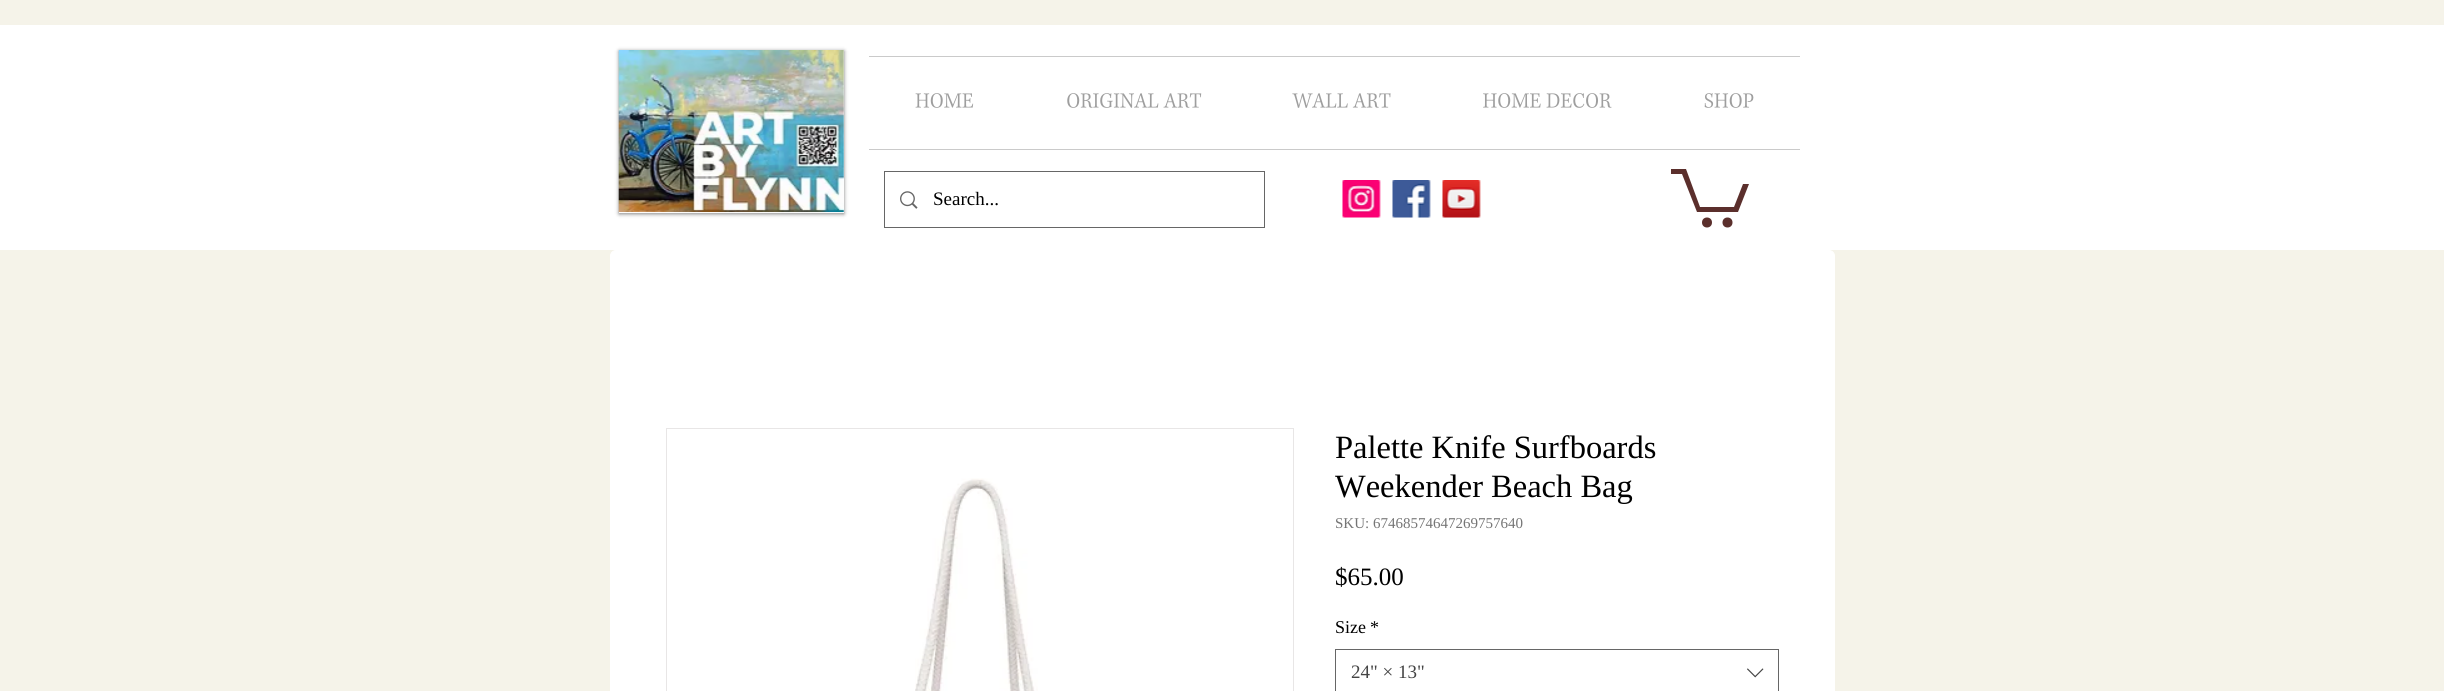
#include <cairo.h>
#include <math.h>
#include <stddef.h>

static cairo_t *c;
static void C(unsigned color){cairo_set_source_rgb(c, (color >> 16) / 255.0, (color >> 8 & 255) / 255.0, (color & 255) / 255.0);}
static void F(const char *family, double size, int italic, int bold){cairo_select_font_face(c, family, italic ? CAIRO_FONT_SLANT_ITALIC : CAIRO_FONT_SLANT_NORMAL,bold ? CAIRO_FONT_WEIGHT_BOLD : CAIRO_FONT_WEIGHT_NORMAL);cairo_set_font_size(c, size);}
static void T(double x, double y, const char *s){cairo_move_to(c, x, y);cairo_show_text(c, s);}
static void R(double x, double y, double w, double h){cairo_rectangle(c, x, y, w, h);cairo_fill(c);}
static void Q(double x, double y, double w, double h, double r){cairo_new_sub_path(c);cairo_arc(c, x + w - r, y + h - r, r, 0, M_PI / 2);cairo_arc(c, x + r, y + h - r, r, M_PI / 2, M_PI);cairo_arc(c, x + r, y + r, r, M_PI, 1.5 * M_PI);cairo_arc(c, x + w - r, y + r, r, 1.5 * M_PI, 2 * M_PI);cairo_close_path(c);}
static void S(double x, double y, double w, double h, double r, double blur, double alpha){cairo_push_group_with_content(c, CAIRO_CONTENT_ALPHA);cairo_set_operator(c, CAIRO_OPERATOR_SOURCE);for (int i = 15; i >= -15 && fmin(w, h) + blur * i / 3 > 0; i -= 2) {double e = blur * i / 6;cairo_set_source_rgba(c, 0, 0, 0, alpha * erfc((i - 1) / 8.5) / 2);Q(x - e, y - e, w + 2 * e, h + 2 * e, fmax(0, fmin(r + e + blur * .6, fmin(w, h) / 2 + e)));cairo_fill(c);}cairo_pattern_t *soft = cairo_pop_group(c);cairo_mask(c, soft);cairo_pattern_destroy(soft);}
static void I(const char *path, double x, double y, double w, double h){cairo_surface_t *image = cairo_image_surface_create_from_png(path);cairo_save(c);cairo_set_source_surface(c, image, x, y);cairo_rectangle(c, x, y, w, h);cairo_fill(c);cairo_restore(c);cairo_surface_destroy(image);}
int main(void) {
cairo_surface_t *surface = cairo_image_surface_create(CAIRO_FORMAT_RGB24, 2444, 691);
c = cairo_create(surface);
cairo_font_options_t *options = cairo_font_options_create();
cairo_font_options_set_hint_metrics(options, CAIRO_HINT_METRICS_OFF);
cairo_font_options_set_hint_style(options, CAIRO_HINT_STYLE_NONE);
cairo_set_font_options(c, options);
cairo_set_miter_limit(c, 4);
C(0xf5f3e9);
cairo_paint(c);
C(0xffffff);
R(0,25,2444,225);
C(0x000000);
S(619,51,225,163,0,2,.5);
C(0xffffff);
R(619,50,225,163);
I("1.png",618,50,226,163);
C(0xcacaca);
R(869,56,931,1);
R(869,149,931,1);
I("2.png",915,93,59,15);
I("3.png",1067,93,135,15);
I("4.png",1292,93,99,15);
I("5.png",1483,93,129,15);
I("6.png",1704,93,50,15);
cairo_rectangle(c,884.5,171.5,380,56);
C(0x666666);
cairo_set_line_width(c,1);
cairo_stroke(c);
I("7.png",900,191,18,18);
F("Liberation Serif",19,0,0);
C(0x000000);
T(933,205,"Search...");
I("8.png",1342,180,39,38);
I("9.png",1392,180,39,38);
I("10.png",1442,180,39,38);
C(0x5b2f2c);
cairo_new_path(c);
cairo_move_to(c,1749,184);
cairo_line_to(c,1738,212);
cairo_line_to(c,1697,212);
cairo_line_to(c,1682,174);
cairo_line_to(c,1671,174);
cairo_line_to(c,1671,169);
cairo_line_to(c,1686,169);
cairo_line_to(c,1700,207);
cairo_line_to(c,1734,207);
cairo_line_to(c,1743,184);
cairo_fill(c);
cairo_arc(c,1727.5,222.5,5,0,2 * M_PI);
cairo_fill(c);
cairo_arc(c,1707,222.5,5,0,2 * M_PI);
cairo_fill(c);
C(0xffffff);
Q(610.5,250.5,1224,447,5.5);
cairo_fill_preserve(c);
cairo_stroke(c);
cairo_rectangle(c,666.5,428.5,627,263);
C(0xe8e6e6);
cairo_stroke(c);
I("11.png",915,478,123,213);
F("Liberation Serif",32.5,0,0);
C(0x000000);
T(1335,458,"Palette Knife Surfboards");
T(1335,497,"Weekender Beach Bag");
F("Liberation Serif",15,0,0);
C(0x757575);
T(1335,528,"SKU: 67468574647269757640");
F("Liberation Serif",25,0,0);
C(0x000000);
T(1335,585,"$65.00");
F("Liberation Serif",18,0,0);
T(1335,633,"Size");
T(1370,633,"*");
cairo_rectangle(c,1335.5,649.5,443,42);
C(0x666666);
cairo_stroke(c);
F("Liberation Serif",19,0,0);
C(0x444444);
T(1351,678,"24\" × 13\"");
I("12.png",1747,668,17,10);
cairo_surface_write_to_png(surface, "o.png");
cairo_font_options_destroy(options);
cairo_destroy(c);
cairo_surface_destroy(surface);
return 0;
}
